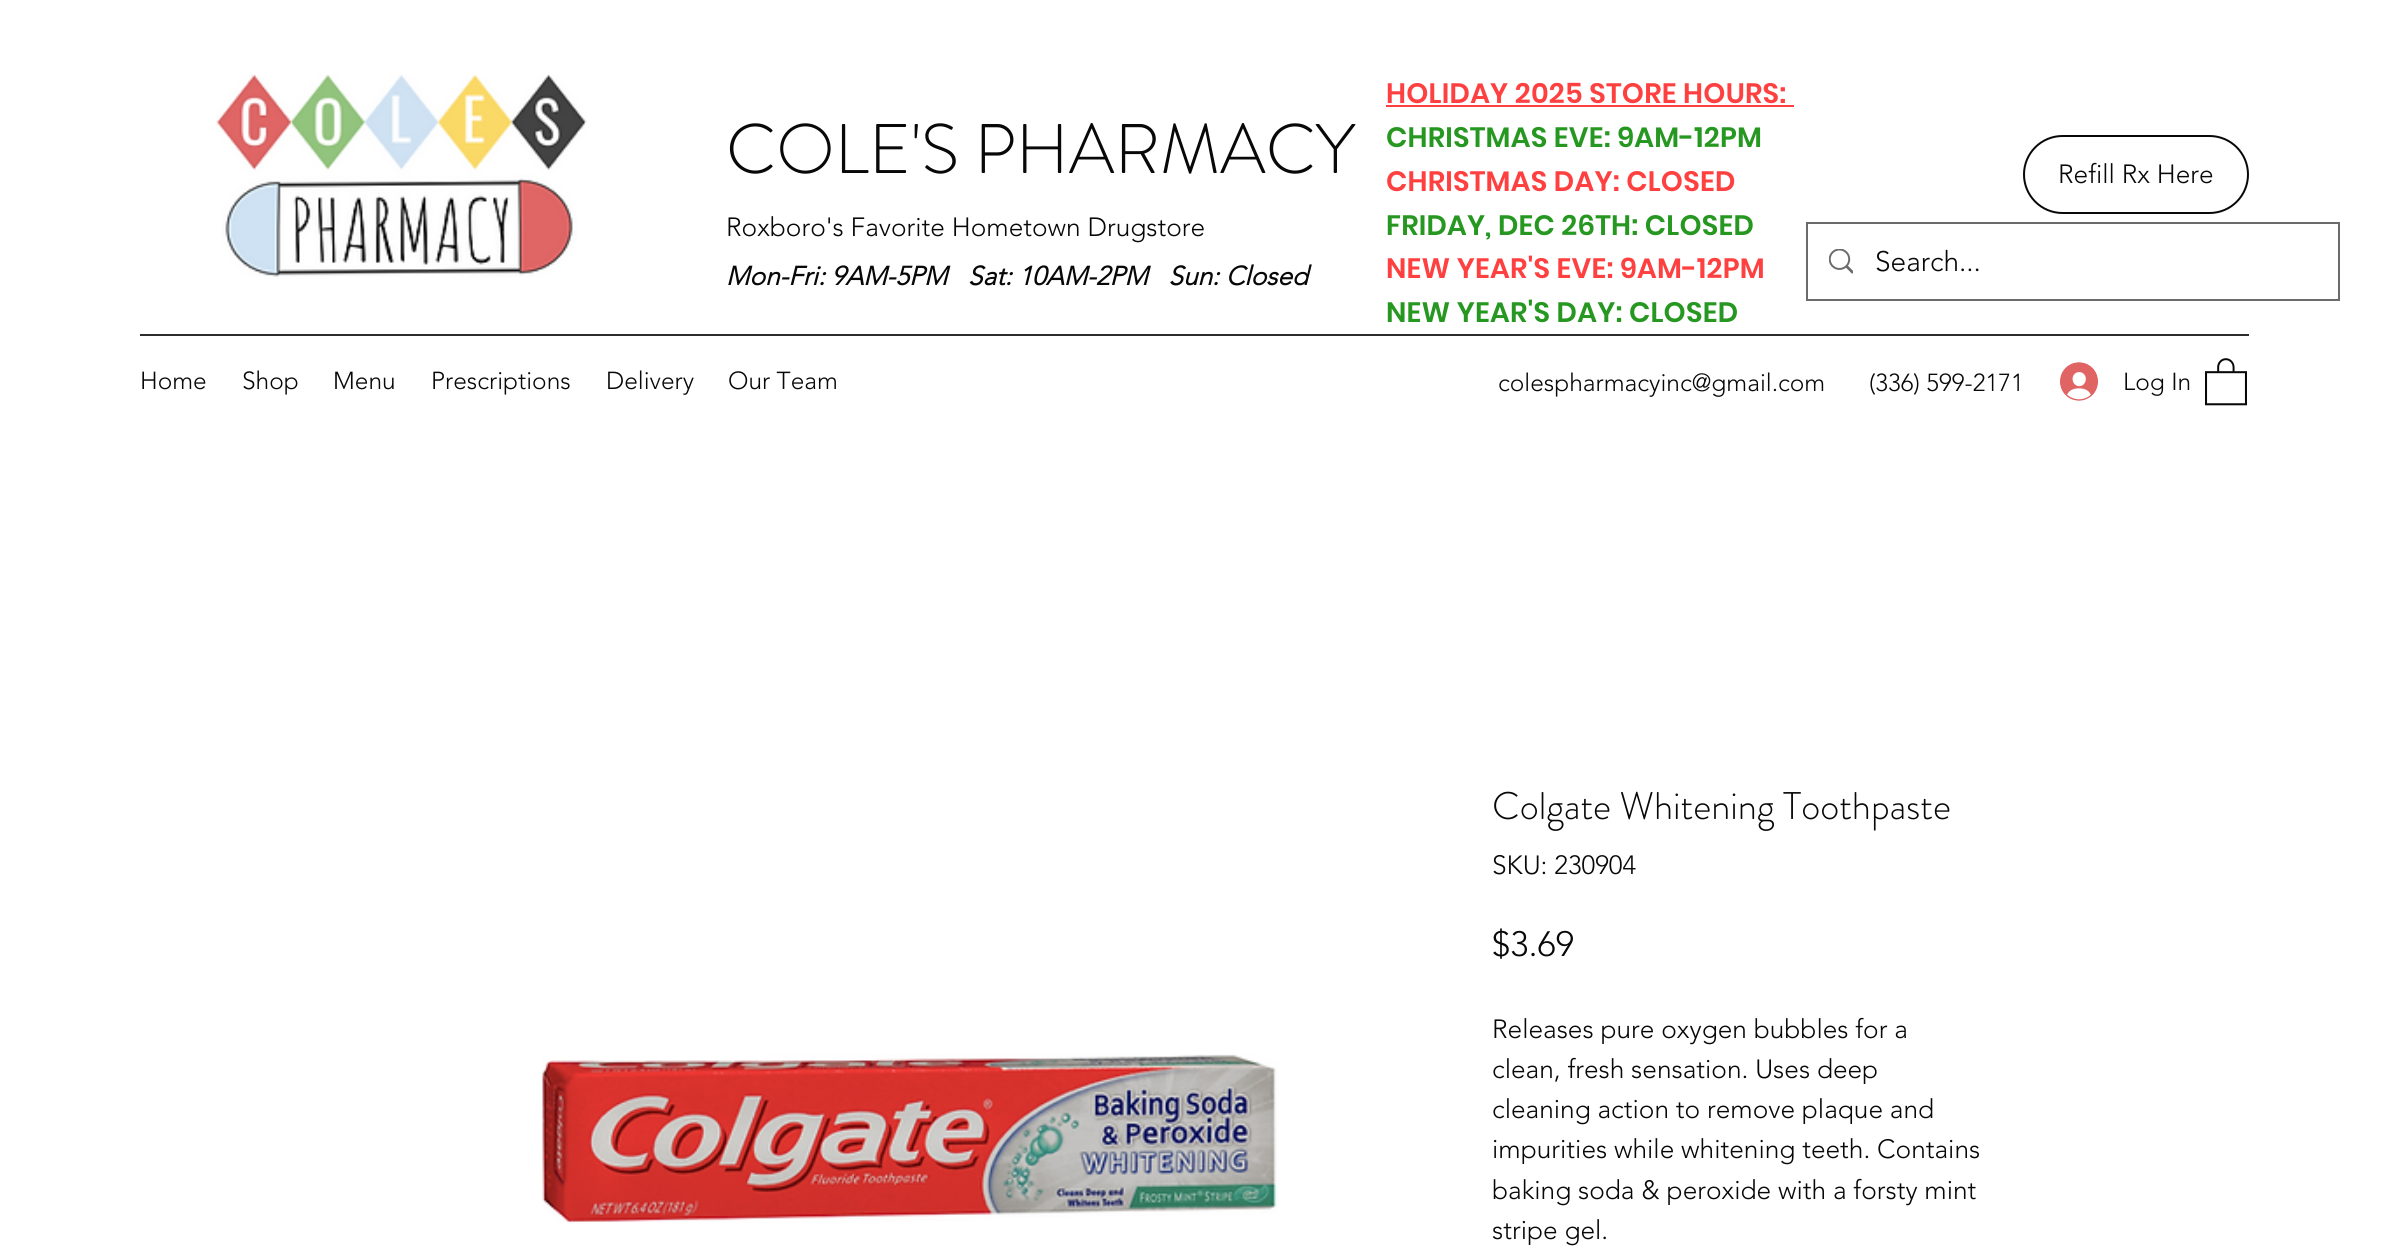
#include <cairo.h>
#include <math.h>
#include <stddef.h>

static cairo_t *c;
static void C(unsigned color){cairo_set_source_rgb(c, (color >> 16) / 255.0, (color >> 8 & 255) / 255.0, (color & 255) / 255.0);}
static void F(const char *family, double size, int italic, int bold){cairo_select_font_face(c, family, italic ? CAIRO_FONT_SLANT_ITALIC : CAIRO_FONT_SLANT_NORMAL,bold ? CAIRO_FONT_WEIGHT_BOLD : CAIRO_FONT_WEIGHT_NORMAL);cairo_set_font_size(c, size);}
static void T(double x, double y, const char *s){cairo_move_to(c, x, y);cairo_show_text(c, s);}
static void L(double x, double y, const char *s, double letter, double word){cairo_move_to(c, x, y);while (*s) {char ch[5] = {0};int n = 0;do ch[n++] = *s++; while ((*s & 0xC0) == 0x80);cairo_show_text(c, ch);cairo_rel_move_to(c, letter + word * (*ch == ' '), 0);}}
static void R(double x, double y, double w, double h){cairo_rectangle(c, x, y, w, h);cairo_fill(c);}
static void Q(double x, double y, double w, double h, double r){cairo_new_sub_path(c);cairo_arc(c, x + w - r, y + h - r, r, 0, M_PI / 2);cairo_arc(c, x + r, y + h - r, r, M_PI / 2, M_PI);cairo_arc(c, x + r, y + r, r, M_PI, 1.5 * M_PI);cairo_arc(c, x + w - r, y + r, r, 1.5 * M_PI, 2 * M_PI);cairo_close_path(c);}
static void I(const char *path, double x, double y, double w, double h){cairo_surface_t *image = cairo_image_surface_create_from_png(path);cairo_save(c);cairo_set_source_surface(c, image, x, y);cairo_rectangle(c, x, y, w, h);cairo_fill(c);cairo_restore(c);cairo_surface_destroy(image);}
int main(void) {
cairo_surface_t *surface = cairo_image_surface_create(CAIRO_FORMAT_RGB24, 2388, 1260);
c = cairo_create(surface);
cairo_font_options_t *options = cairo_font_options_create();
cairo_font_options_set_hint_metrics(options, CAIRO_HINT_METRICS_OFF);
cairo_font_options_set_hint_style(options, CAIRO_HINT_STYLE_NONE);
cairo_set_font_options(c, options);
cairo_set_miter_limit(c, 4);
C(0xffffff);
cairo_paint(c);
I("1.png",216,74,371,203);
F("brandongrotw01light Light",70,0,0);
C(0x080808);
T(726,173,"COLE'S PHARMACY");
F("Poppins SemiBold",28,0,0);
C(0xff4040);
L(1386,103,"HOLIDAY 2025 STORE HOURS:",.25,0);
R(1386,105,408,2);
C(0x269720);
L(1386,147,"CHRISTMAS EVE: 9AM-12PM",.25,0);
C(0xff4040);
L(1386,191,"CHRISTMAS DAY: CLOSED",.25,0);
C(0x269720);
L(1386,235,"FRIDAY, DEC 26TH: CLOSED",.25,0);
C(0xff4040);
L(1386,278,"NEW YEAR'S EVE: 9AM-12PM",.25,0);
C(0x269720);
L(1386,322,"NEW YEAR'S DAY: CLOSED",.25,0);
F("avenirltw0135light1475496 Light",26.25,0,0);
C(0x080808);
T(726,236,"Roxboro's Favorite Hometown Drugstore");
F("avenirltw0135light1475496",26.25,1,1);
T(726,285,"Mon-Fri: 9AM-5PM   Sat: 10AM-2PM   Sun: Closed");
cairo_rectangle(c,1807,223,532,77);
C(0x6b6b6b);
cairo_stroke(c);
I("2.png",1829,249,24,25);
F("avenirltw0135light1475496 Light",28,0,0);
C(0x080808);
T(1875,271,"Search...");
Q(2024,136,224,77,38.5);
cairo_stroke(c);
F("avenirltw0135light1475496 Light",26.25,0,0);
T(2058,183,"Refill Rx Here");
C(0x2d2d2d);
R(140,334,2109,2);
F("avenirltw0135light1475496 Light",24.5,0,0);
C(0x080808);
T(140,389,"Home");
T(242,389,"Shop");
T(333,389,"Menu");
T(431,389,"Prescriptions");
T(606,389,"Delivery");
T(728,389,"Our Team");
T(1498,391,"colespharmacyinc@gmail.com");
T(1869,391,"(336) 599-2171");
I("3.png",2060,362,38,39);
T(2123,390,"Log In");
I("4.png",2205,358,42,48);
I("5.png",542,1054,737,169);
F("brandongrotw01light Light",38.5,0,0);
T(1492,819,"Colgate Whitening Toothpaste");
F("avenirltw0135light1475496 Light",26.25,0,0);
T(1492,874,"SKU: 230904");
F("avenirltw0135light1475496 Light",35,0,0);
T(1492,956,"$3.69");
F("avenirltw0135light1475496 Light",26.25,0,0);
T(1492,1038,"Releases pure oxygen bubbles for a");
T(1492,1078,"clean, fresh sensation. Uses deep");
T(1492,1118,"cleaning action to remove plaque and");
T(1492,1158,"impurities while whitening teeth. Contains");
T(1492,1199,"baking soda & peroxide with a forsty mint");
T(1492,1239,"stripe gel.");
cairo_surface_write_to_png(surface, "o.png");
cairo_font_options_destroy(options);
cairo_destroy(c);
cairo_surface_destroy(surface);
return 0;
}
